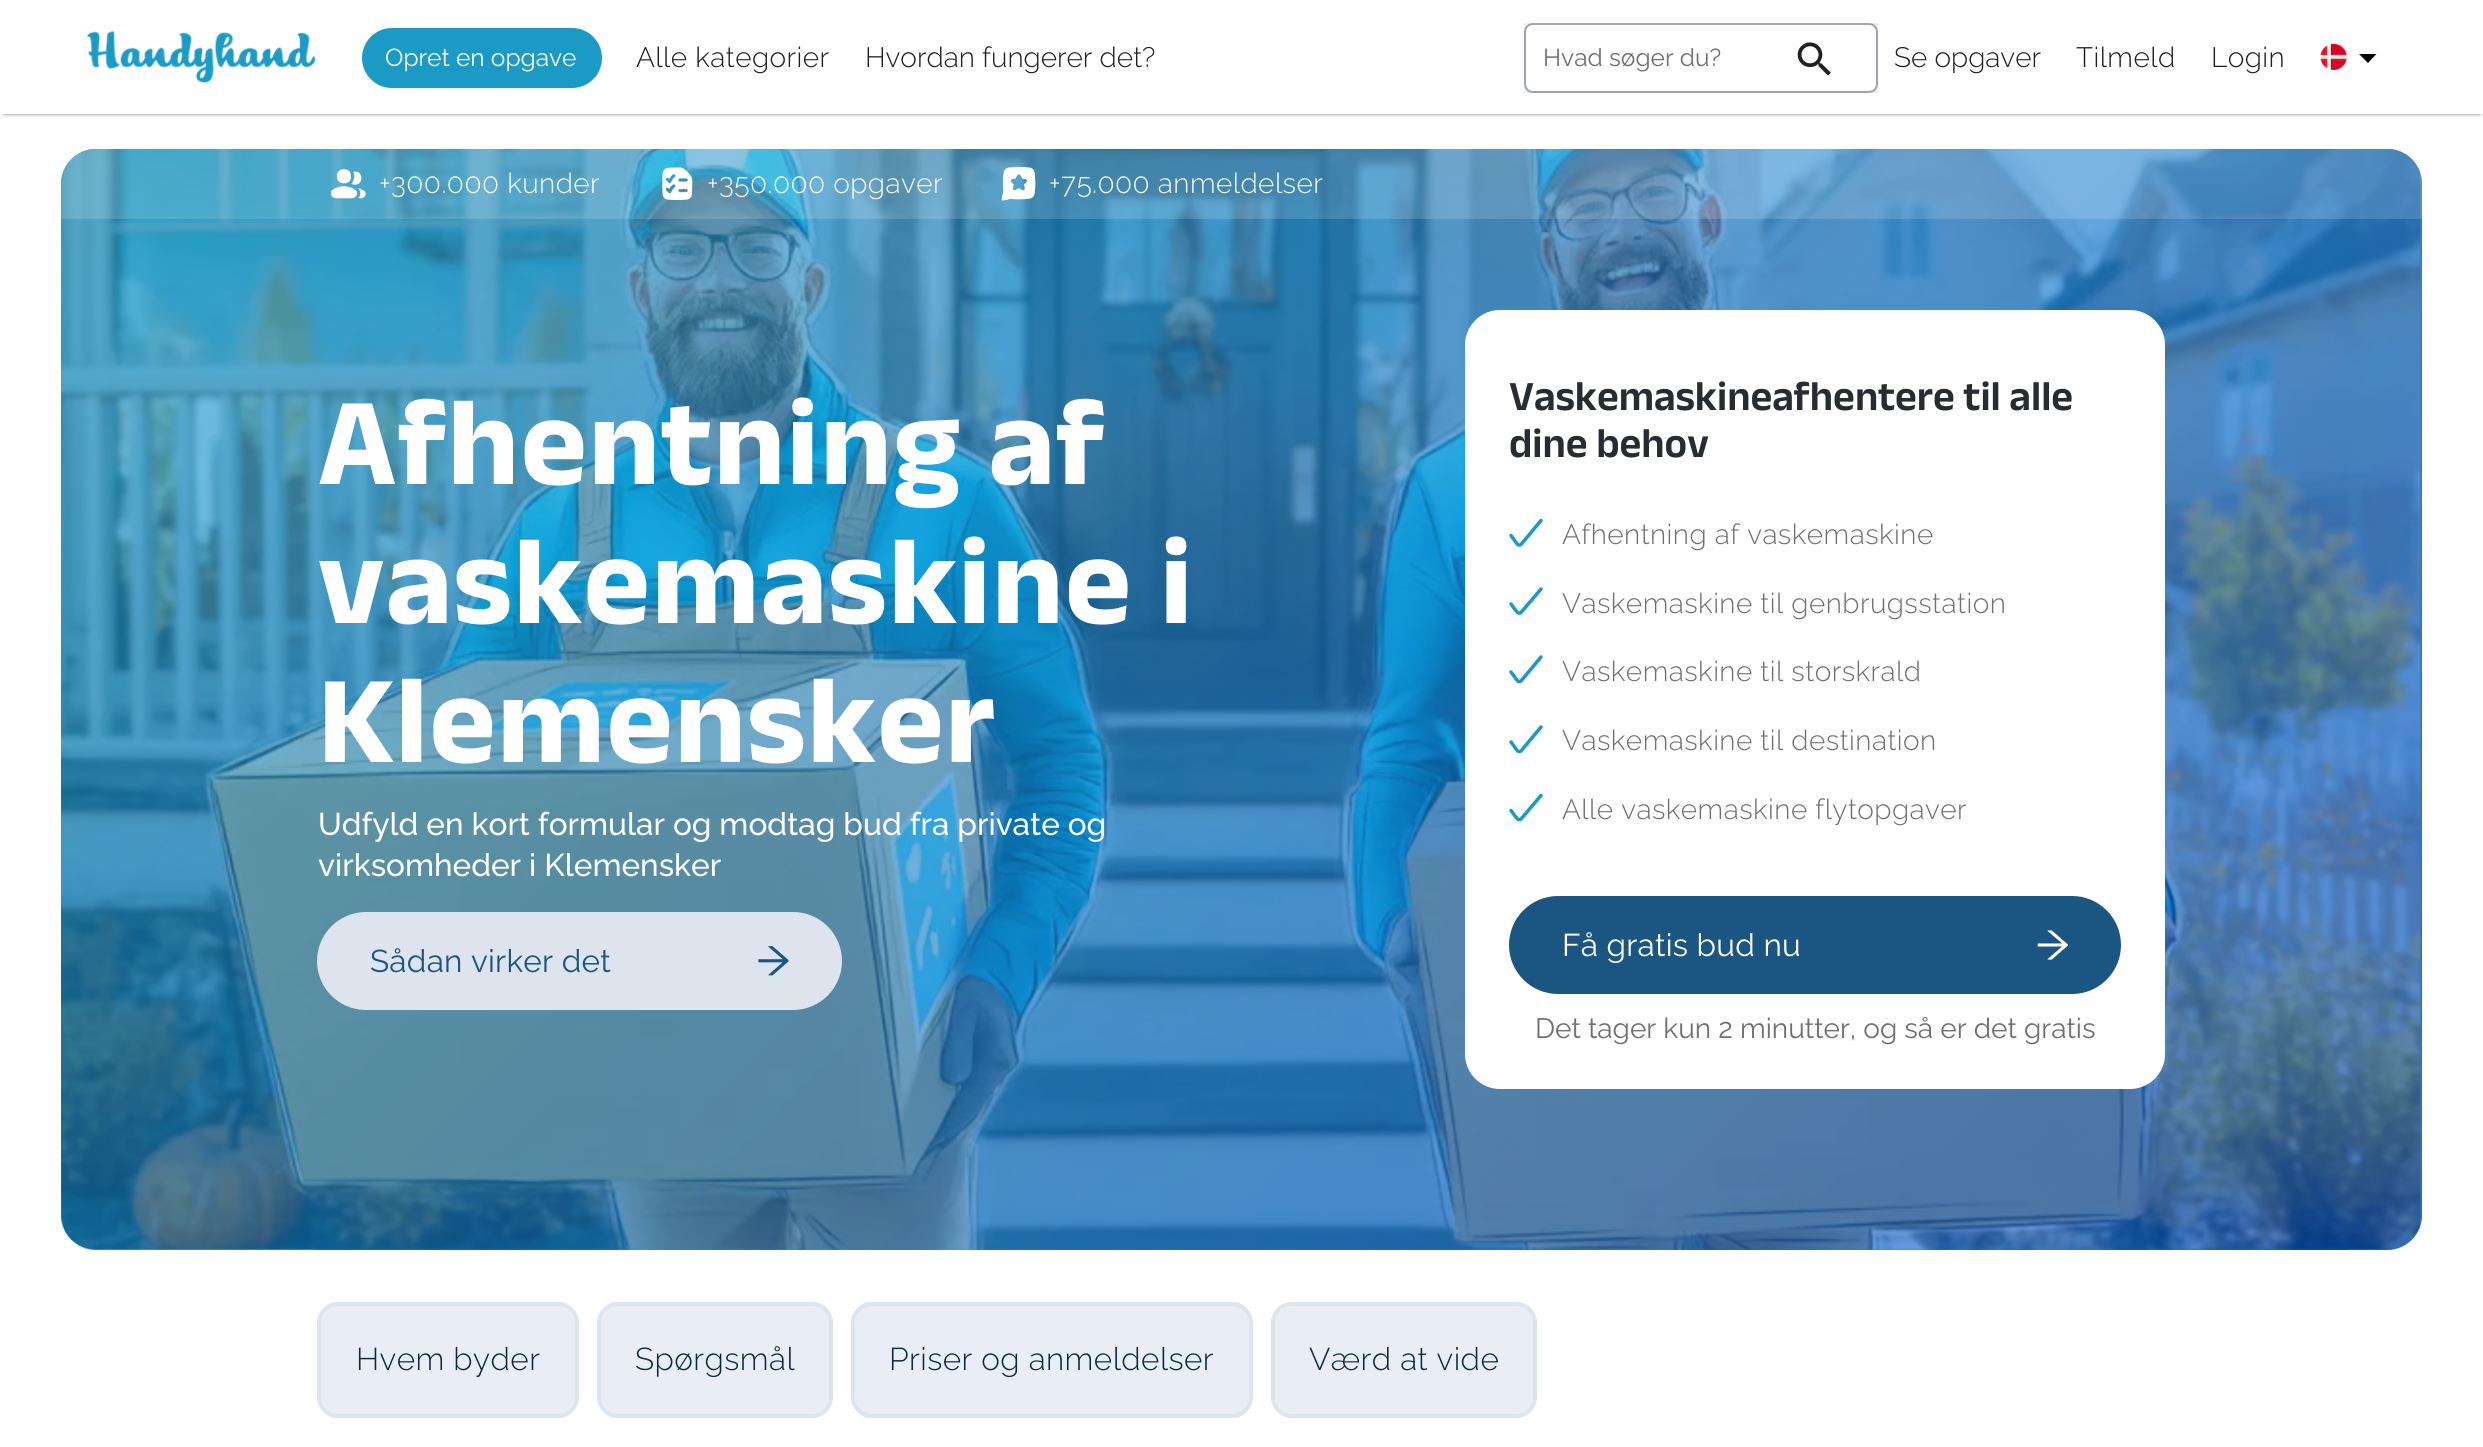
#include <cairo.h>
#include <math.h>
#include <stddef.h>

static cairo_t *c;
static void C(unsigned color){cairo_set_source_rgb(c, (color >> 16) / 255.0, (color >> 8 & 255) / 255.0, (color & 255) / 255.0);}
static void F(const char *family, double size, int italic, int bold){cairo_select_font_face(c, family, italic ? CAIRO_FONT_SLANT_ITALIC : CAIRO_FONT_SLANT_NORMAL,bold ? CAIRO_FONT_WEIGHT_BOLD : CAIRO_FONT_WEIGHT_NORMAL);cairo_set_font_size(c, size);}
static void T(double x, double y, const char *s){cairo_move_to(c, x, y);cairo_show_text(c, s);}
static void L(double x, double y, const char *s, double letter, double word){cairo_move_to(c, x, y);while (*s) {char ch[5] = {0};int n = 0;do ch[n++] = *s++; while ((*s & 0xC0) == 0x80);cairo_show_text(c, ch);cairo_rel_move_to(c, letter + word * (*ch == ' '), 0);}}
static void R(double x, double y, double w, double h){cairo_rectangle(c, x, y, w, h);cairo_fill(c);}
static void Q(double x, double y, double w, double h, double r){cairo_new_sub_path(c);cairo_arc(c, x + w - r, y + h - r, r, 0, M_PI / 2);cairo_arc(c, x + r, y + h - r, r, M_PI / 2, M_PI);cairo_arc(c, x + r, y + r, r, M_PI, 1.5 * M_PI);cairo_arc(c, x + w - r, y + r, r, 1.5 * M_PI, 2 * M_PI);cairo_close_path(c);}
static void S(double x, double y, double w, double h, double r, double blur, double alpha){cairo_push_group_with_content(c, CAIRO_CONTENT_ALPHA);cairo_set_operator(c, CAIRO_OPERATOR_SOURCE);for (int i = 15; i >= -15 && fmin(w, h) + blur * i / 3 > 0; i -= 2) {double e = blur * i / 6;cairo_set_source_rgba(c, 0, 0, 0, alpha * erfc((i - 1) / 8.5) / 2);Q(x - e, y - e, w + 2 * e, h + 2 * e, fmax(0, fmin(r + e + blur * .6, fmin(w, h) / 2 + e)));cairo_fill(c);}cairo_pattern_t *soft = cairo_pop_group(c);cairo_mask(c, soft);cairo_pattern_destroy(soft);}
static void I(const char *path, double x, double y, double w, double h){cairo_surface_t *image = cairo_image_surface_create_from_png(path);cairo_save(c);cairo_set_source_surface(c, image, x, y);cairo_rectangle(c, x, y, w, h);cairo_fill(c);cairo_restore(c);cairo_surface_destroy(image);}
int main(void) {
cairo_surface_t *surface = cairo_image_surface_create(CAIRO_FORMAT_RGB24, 2483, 1447);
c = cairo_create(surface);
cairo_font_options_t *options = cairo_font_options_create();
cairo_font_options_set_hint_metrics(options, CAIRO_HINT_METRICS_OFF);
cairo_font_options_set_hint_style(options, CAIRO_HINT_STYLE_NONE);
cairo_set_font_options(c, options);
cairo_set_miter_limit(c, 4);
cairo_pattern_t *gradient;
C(0xffffff);
cairo_paint(c);
C(0x000000);
S(4,7,2476,107,0,2,.5);
C(0xffffff);
R(0,3,2483,111);
I("1.png",87,31,228,52);
C(0x1b9ac6);
Q(362,28,240,60,30);
cairo_fill(c);
F("Raleway",24.5,0,0);
C(0xffffff);
T(385,66,"Opret en opgave");
F("Raleway Light",28,0,0);
C(0x202020);
L(636,67,"Alle kategorier",.45,0);
T(865,67,"Hvordan fungerer det?");
C(0xe9eef6);
R(1524,23,354,70);
C(0xffffff);
Q(1525,24,352,68,8);
cairo_fill_preserve(c);
C(0xa1a2b2);
cairo_stroke(c);
F("Raleway",24.5,0,0);
C(0x707070);
T(1543,66,"Hvad søger du?");
I("2.png",1797,42,34,34);
F("Raleway Light",28,0,0);
C(0x202020);
T(1894,67,"Se opgaver");
L(2076,67,"Tilmeld",.45,0);
L(2211,67,"Login",.45,0);
I("3.png",2320,43,27,27);
C(0x000000);
cairo_new_path(c);
cairo_move_to(c,2359,54);
cairo_line_to(c,2376.5,54);
cairo_line_to(c,2368,63);
cairo_close_path(c);
cairo_fill(c);
gradient = cairo_pattern_create_linear(376,-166,2107,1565);
cairo_pattern_add_color_stop_rgba(gradient,0,0.467,0.765,0.867,1);
cairo_pattern_add_color_stop_rgba(gradient,1,0.4,0.596,0.882,1);
cairo_set_source(c,gradient);
cairo_pattern_destroy(gradient);
Q(61,149,2361,1101,35);
cairo_fill(c);
I("4.png",61,149,2360,1101);
gradient = cairo_pattern_create_linear(376,-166,2107,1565);
cairo_pattern_add_color_stop_rgba(gradient,0,0.106,0.604,0.776,.6);
cairo_pattern_add_color_stop_rgba(gradient,1,0,0.322,0.8,.6);
cairo_set_source(c,gradient);
cairo_pattern_destroy(gradient);
Q(61,149,2361,1101,35);
cairo_fill(c);
cairo_set_source_rgba(c,1,1,1,0.15);
cairo_new_path(c);
cairo_move_to(c,96,149);
cairo_line_to(c,2387,149);
cairo_curve_to(c,2406.5,149,2422,164.5,2422,184);
cairo_line_to(c,2422,219);
cairo_line_to(c,61,219);
cairo_line_to(c,61,184);
cairo_curve_to(c,61,164.5,76.5,149,96,149);
cairo_close_path(c);
cairo_fill(c);
I("5.png",331,169,35,30);
C(0xffffff);
L(379,193,"+300.000 kunder",.45,0);
I("6.png",662,167,31,33);
L(707,193,"+350.000 opgaver",.45,0);
I("7.png",1001,166,35,35);
L(1049,193,"+75.000 anmeldelser",.45,0);
F("Anek Latin",126,0,1);
L(318,484,"Afhentning af",1.4,0);
L(318,623,"vaskemaskine i",1.4,0);
L(318,762,"Klemensker",1.4,0);
F("Raleway Medium",31.5,0,0);
T(318,835,"Udfyld en kort formular og modtag bud fra private og");
T(318,876,"virksomheder i Klemensker");
C(0xdde4ee);
Q(317,912,525,98,49);
cairo_fill(c);
F("Raleway",31.5,0,0);
C(0x1a5681);
L(370,972,"Sådan virker det",.25,0);
I("8.png",758,946,31,30);
C(0xffffff);
Q(1465,310,700,779,35);
cairo_fill(c);
F("Anek Latin SemiBold",42,0,0);
C(0x292b32);
T(1509,410,"Vaskemaskineafhentere til alle");
T(1509,457,"dine behov");
cairo_new_path(c);
cairo_move_to(c,1511,535.5);
cairo_line_to(c,1515,541);
cairo_curve_to(c,1516.5,543,1518,546.5,1521,544.5);
cairo_line_to(c,1541,520.5);
C(0x1b9ac6);
cairo_set_line_width(c,3.5);
cairo_set_line_cap(c,CAIRO_LINE_CAP_ROUND);
cairo_set_line_join(c,CAIRO_LINE_JOIN_ROUND);
cairo_stroke(c);
F("Raleway Light",28,0,0);
C(0x707070);
L(1562,544,"Afhentning af vaskemaskine",.45,0);
cairo_new_path(c);
cairo_move_to(c,1511,604);
cairo_line_to(c,1515,609.5);
cairo_curve_to(c,1516.5,611,1518,614.5,1521,612.5);
cairo_line_to(c,1541,589);
C(0x1b9ac6);
cairo_stroke(c);
C(0x707070);
L(1562,613,"Vaskemaskine til genbrugsstation",.45,0);
cairo_new_path(c);
cairo_move_to(c,1511,672);
cairo_line_to(c,1515,677.5);
cairo_curve_to(c,1516.5,679.5,1518,683,1521,681);
cairo_line_to(c,1541,657);
C(0x1b9ac6);
cairo_stroke(c);
C(0x707070);
L(1562,681,"Vaskemaskine til storskrald",.45,0);
cairo_new_path(c);
cairo_move_to(c,1511,742);
cairo_line_to(c,1515,747.5);
cairo_curve_to(c,1516.5,749.5,1518,753,1521,751);
cairo_line_to(c,1541,727);
C(0x1b9ac6);
cairo_stroke(c);
C(0x707070);
L(1562,750,"Vaskemaskine til destination",.45,0);
cairo_new_path(c);
cairo_move_to(c,1511,810.5);
cairo_line_to(c,1515,816);
cairo_curve_to(c,1516.5,817.5,1518,821,1521,819);
cairo_line_to(c,1541,795.5);
C(0x1b9ac6);
cairo_stroke(c);
C(0x707070);
L(1562,819,"Alle vaskemaskine flytopgaver",.45,0);
C(0x1a5681);
Q(1509,896,612,98,49);
cairo_fill(c);
F("Raleway",31.5,0,0);
C(0xffffff);
L(1562,956,"Få gratis bud nu",.25,0);
I("9.png",2037,930,31,30);
F("Raleway",28,0,0);
C(0x707070);
T(1535,1038,"Det tager kun 2 minutter, og så er det gratis");
C(0xe9eef6);
Q(319,1304,258,112,19);
cairo_fill_preserve(c);
C(0xdde4ee);
cairo_set_line_width(c,4);
cairo_set_line_cap(c,CAIRO_LINE_CAP_BUTT);
cairo_set_line_join(c,CAIRO_LINE_JOIN_MITER);
cairo_stroke(c);
F("Raleway Light",31.5,0,0);
C(0x0d293d);
L(356,1370,"Hvem byder",.45,0);
C(0xe9eef6);
Q(599,1304,232,112,19);
cairo_fill_preserve(c);
C(0xdde4ee);
cairo_stroke(c);
C(0x0d293d);
L(635,1370,"Spørgsmål",.45,0);
C(0xe9eef6);
Q(853,1304,398,112,19);
cairo_fill_preserve(c);
C(0xdde4ee);
cairo_stroke(c);
C(0x0d293d);
L(889,1370,"Priser og anmeldelser",.45,0);
C(0xe9eef6);
Q(1273,1304,262,112,19);
cairo_fill_preserve(c);
C(0xdde4ee);
cairo_stroke(c);
C(0x0d293d);
L(1309,1370,"Værd at vide",.45,0);
cairo_surface_write_to_png(surface, "o.png");
cairo_font_options_destroy(options);
cairo_destroy(c);
cairo_surface_destroy(surface);
return 0;
}
